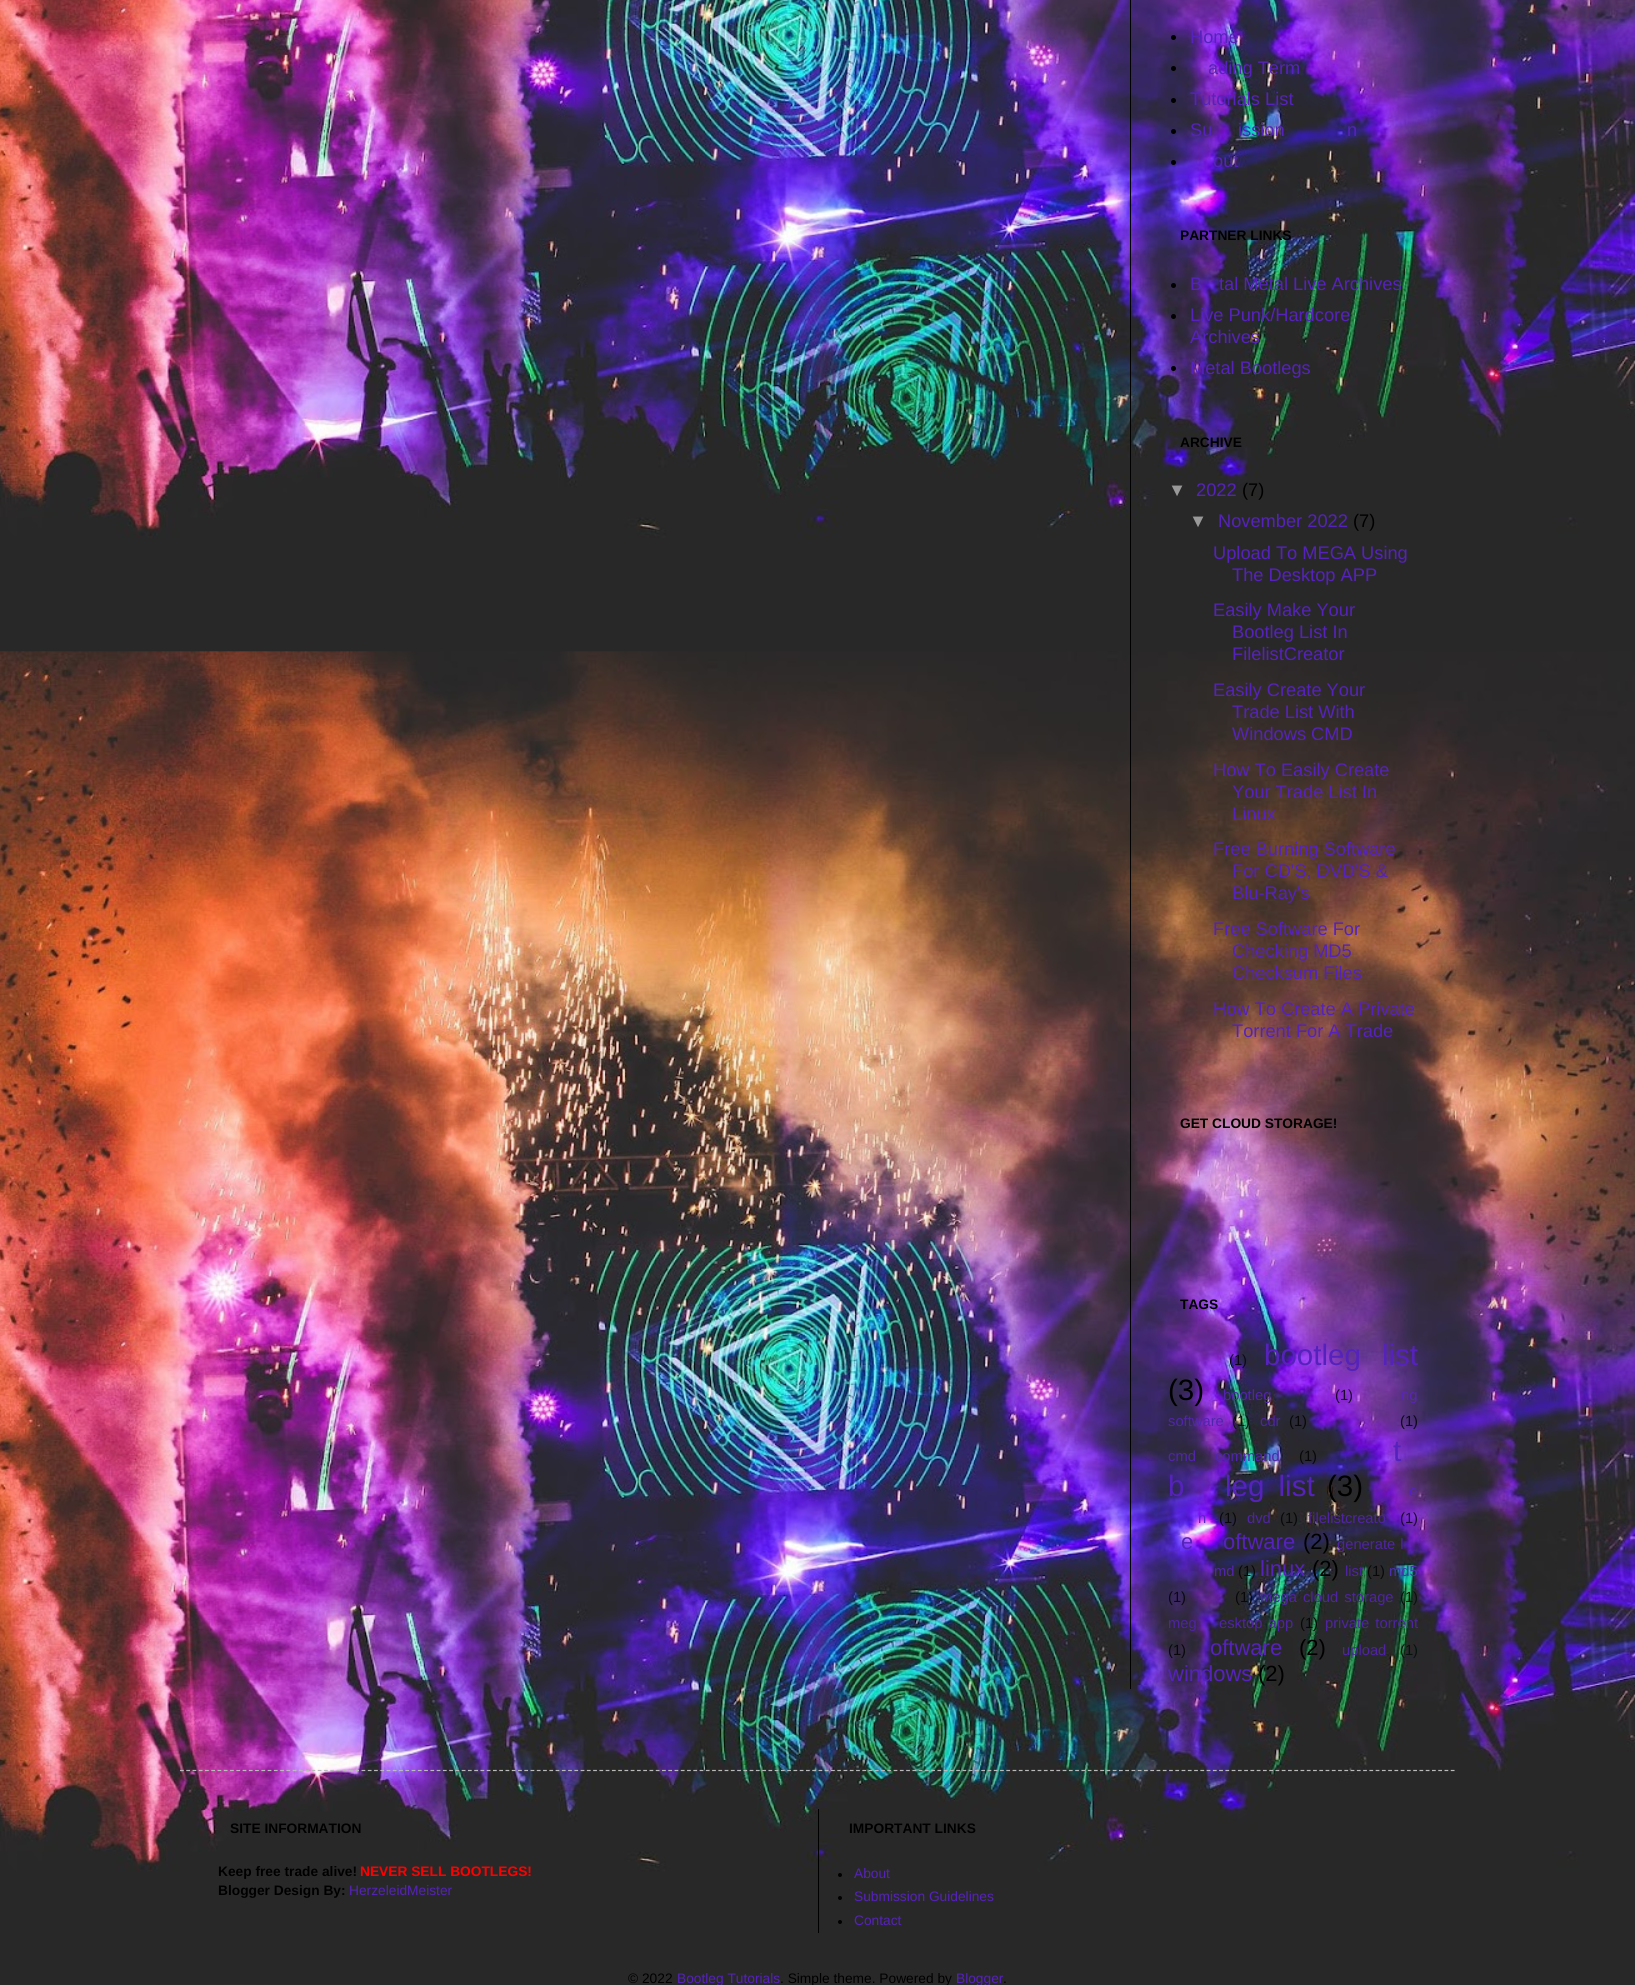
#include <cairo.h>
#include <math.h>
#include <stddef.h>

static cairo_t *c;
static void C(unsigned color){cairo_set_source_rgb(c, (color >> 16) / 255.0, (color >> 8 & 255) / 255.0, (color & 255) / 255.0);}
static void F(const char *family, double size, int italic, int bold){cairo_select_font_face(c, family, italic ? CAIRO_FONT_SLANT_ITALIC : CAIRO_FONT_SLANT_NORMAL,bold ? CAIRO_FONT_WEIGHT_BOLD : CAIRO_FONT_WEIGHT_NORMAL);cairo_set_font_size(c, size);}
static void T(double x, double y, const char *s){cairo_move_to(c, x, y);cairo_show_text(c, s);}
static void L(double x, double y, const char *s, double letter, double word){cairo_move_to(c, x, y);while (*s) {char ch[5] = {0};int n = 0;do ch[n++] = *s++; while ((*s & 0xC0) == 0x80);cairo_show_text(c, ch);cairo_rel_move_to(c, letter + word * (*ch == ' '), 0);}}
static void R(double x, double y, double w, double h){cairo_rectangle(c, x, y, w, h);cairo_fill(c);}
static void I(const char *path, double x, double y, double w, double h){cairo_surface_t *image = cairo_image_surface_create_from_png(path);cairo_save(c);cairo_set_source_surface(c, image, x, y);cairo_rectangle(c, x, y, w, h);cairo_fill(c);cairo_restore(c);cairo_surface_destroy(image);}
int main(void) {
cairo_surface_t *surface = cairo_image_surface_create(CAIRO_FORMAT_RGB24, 1635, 1985);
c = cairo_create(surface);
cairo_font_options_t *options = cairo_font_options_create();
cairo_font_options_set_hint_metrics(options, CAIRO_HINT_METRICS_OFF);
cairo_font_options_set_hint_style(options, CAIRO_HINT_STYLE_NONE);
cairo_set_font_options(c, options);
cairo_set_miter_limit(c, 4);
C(0xffffff);
cairo_paint(c);
I("1.png",0,0,1635,1985);
C(0x000000);
R(1130,0,1,1689);
cairo_arc(c,1173.5,37.5,2.5,0,2 * M_PI);
cairo_fill(c);
F("Liberation Sans",18.25,0,0);
C(0x5522bb);
T(1190,43,"Home");
C(0x000000);
cairo_new_path(c);
cairo_arc(c,1173.5,68.5,2.5,0,2 * M_PI);
cairo_fill(c);
C(0x5522bb);
T(1208,74,"ading Term");
C(0x000000);
cairo_new_path(c);
cairo_arc(c,1173.5,100.5,2.5,0,2 * M_PI);
cairo_fill(c);
C(0x5522bb);
T(1190,105,"Tutorials List");
C(0x000000);
cairo_new_path(c);
cairo_arc(c,1173.5,131.5,2.5,0,2 * M_PI);
cairo_fill(c);
C(0x5522bb);
T(1190,136,"Su");
T(1238,136,"ission");
T(1347,136,"n");
C(0x000000);
cairo_new_path(c);
cairo_arc(c,1173.5,162.5,2.5,0,2 * M_PI);
cairo_fill(c);
C(0x5522bb);
T(1213,167,"out");
F("Liberation Sans",13.75,0,1);
C(0x000000);
T(1180,240,"PARTNER LINKS");
cairo_new_path(c);
cairo_arc(c,1173.5,285.5,2.5,0,2 * M_PI);
cairo_fill(c);
F("Liberation Sans",18.25,0,0);
C(0x5522bb);
T(1190,290,"B");
T(1219,290,"tal Metal Live Archives");
C(0x000000);
cairo_new_path(c);
cairo_arc(c,1173.5,316.5,2.5,0,2 * M_PI);
cairo_fill(c);
C(0x5522bb);
T(1190,321,"Live Punk/Hardcore");
T(1190,343,"Archives");
C(0x000000);
cairo_new_path(c);
cairo_arc(c,1173.5,368.5,2.5,0,2 * M_PI);
cairo_fill(c);
C(0x5522bb);
T(1190,374,"Metal Bootlegs");
F("Liberation Sans",13.75,0,1);
C(0x000000);
T(1180,447,"ARCHIVE");
F("Liberation Sans",18.25,0,0);
C(0x999999);
T(1168,496,"▼");
C(0x5522bb);
T(1196,496,"2022");
C(0x000000);
T(1242,496,"(7)");
C(0x999999);
T(1189,527,"▼");
C(0x5522bb);
T(1218,527,"November 2022");
C(0x000000);
T(1353,527,"(7)");
C(0x5522bb);
T(1213,559,"Upload To MEGA Using");
T(1232,581,"The Desktop APP");
T(1213,616,"Easily Make Your");
T(1232,638,"Bootleg List In");
T(1232,660,"FilelistCreator");
T(1213,696,"Easily Create Your");
T(1232,718,"Trade List With");
T(1232,740,"Windows CMD");
T(1213,776,"How To Easily Create");
T(1232,798,"Your Trade List In");
T(1232,820,"Linux");
T(1213,855,"Free Burning Software");
T(1232,877,"For CD'S, DVD'S &");
T(1232,899,"Blu-Ray's");
T(1213,935,"Free Software For");
T(1232,957,"Checking MD5");
T(1232,979,"Checksum Files");
T(1213,1015,"How To Create A Private");
T(1232,1037,"Torrent For A Trade");
F("Liberation Sans",13.75,0,1);
C(0x000000);
T(1180,1128,"GET CLOUD STORAGE!");
T(1180,1309,"TAGS");
F("Liberation Sans",14.75,0,0);
C(0x0d0819);
T(1229,1365,"(1)");
F("Liberation Sans",29.5,0,0);
C(0x5522bb);
L(1264,1365,"bootleg list",0,13);
C(0x000000);
T(1168,1400,"(3)");
F("Liberation Sans",14.75,0,0);
C(0x5125ab);
L(1223,1400,"bootleg",0,11);
C(0x1c092b);
T(1335,1400,"(1)");
C(0x5826b1);
T(1401,1400,"ng");
C(0x5125ab);
T(1168,1426,"software");
C(0x0c1112);
T(1232,1426,"(1)");
C(0x4e24a2);
T(1260,1426,"cdr");
C(0x08080a);
T(1289,1426,"(1)");
C(0x0d0819);
T(1400,1426,"(1)");
C(0x5125ab);
L(1168,1461,"cmd command",0,15);
C(0x08080a);
T(1299,1461,"(1)");
F("Liberation Sans",29.5,0,0);
C(0x5522bb);
T(1393,1461,"t");
L(1168,1496,"b",0,6);
L(1225,1496,"leg list",0,6);
C(0x000000);
T(1327,1496,"(3)");
F("Liberation Sans",14.75,0,0);
C(0x5522bb);
T(1409,1496,"e");
C(0x5b24c2);
T(1198,1523,"n");
C(0x08080a);
T(1219,1523,"(1)");
C(0x4e24a2);
T(1247,1523,"dvd");
C(0x08080a);
T(1280,1523,"(1)");
C(0x4e24a2);
T(1308,1523,"filelistcreato");
C(0x1c092b);
T(1400,1523,"(1)");
F("Liberation Sans",22,0,0);
C(0x5522bb);
L(1181,1549,"e",0,1);
L(1223,1549,"oftware",0,1);
C(0x000000);
T(1303,1549,"(2)");
F("Liberation Sans",14.75,0,0);
C(0x4e24a2);
L(1337,1549,"generate l",0,1);
C(0x5125ab);
T(1214,1576,"md");
C(0x08080a);
T(1238,1576,"(1)");
F("Liberation Sans",22,0,0);
C(0x5522bb);
T(1260,1576,"linux");
C(0x000000);
T(1312,1576,"(2)");
F("Liberation Sans",14.75,0,0);
C(0x4e24a2);
T(1345,1576,"list");
C(0x08080a);
T(1367,1576,"(1)");
C(0x4b31ae);
T(1389,1576,"md5");
C(0x0b0812);
T(1168,1602,"(1)");
C(0x08080a);
T(1235,1602,"(1)");
C(0x4e24a2);
L(1260,1602,"mega cloud storage",0,2);
C(0x07120c);
T(1400,1602,"(1)");
C(0x4e24a2);
L(1168,1628,"meg",0,2);
L(1219,1628,"esktop app",0,2);
C(0x08080a);
T(1300,1628,"(1)");
C(0x4e24a2);
L(1325,1628,"private torrent",0,2);
C(0x08080a);
T(1168,1655,"(1)");
F("Liberation Sans",22,0,0);
C(0x5522bb);
T(1210,1655,"oftware");
C(0x000000);
T(1299,1655,"(2)");
F("Liberation Sans",14.75,0,0);
C(0x4e24a2);
T(1342,1655,"upload");
C(0x07120c);
T(1400,1655,"(1)");
F("Liberation Sans",22,0,0);
C(0x5522bb);
T(1168,1681,"windows");
C(0x000000);
T(1258,1681,"(2)");
cairo_new_path(c);
cairo_move_to(c,180,1770.5);
cairo_line_to(c,1455,1770.5);
C(0xbbbbbb);
cairo_set_line_width(c,1.2);
cairo_set_dash(c,(double[]){3.75,2.51},2,0);
cairo_stroke(c);
F("Liberation Sans",13.75,0,1);
C(0x000000);
T(230,1833,"SITE INFORMATION");
T(218,1876,"Keep free trade alive!");
C(0xff0000);
T(360,1876,"NEVER SELL BOOTLEGS!");
C(0x000000);
T(218,1895,"Blogger Design By:");
F("Liberation Sans",13.75,0,0);
C(0x5522bb);
T(349,1895,"HerzeleidMeister");
C(0x000000);
R(818,1809,1,124);
F("Liberation Sans",13.75,0,1);
T(849,1833,"IMPORTANT LINKS");
cairo_new_path(c);
cairo_arc(c,840,1875,2,0,2 * M_PI);
cairo_fill(c);
F("Liberation Sans",13.75,0,0);
C(0x5522bb);
T(854,1878,"About");
C(0x000000);
cairo_new_path(c);
cairo_arc(c,840,1898,2,0,2 * M_PI);
cairo_fill(c);
C(0x5522bb);
T(854,1901,"Submission Guidelines");
C(0x000000);
cairo_new_path(c);
cairo_arc(c,840,1922,2,0,2 * M_PI);
cairo_fill(c);
C(0x5522bb);
T(854,1925,"Contact");
C(0x000000);
T(628,1983,"© 2022");
C(0x5522bb);
T(677,1983,"Bootleg Tutorials");
C(0x000000);
T(780,1983,". Simple theme. Powered by");
C(0x5522bb);
T(956,1983,"Blogger");
C(0x000000);
T(1003,1983,".");
cairo_surface_write_to_png(surface, "o.png");
cairo_font_options_destroy(options);
cairo_destroy(c);
cairo_surface_destroy(surface);
return 0;
}
